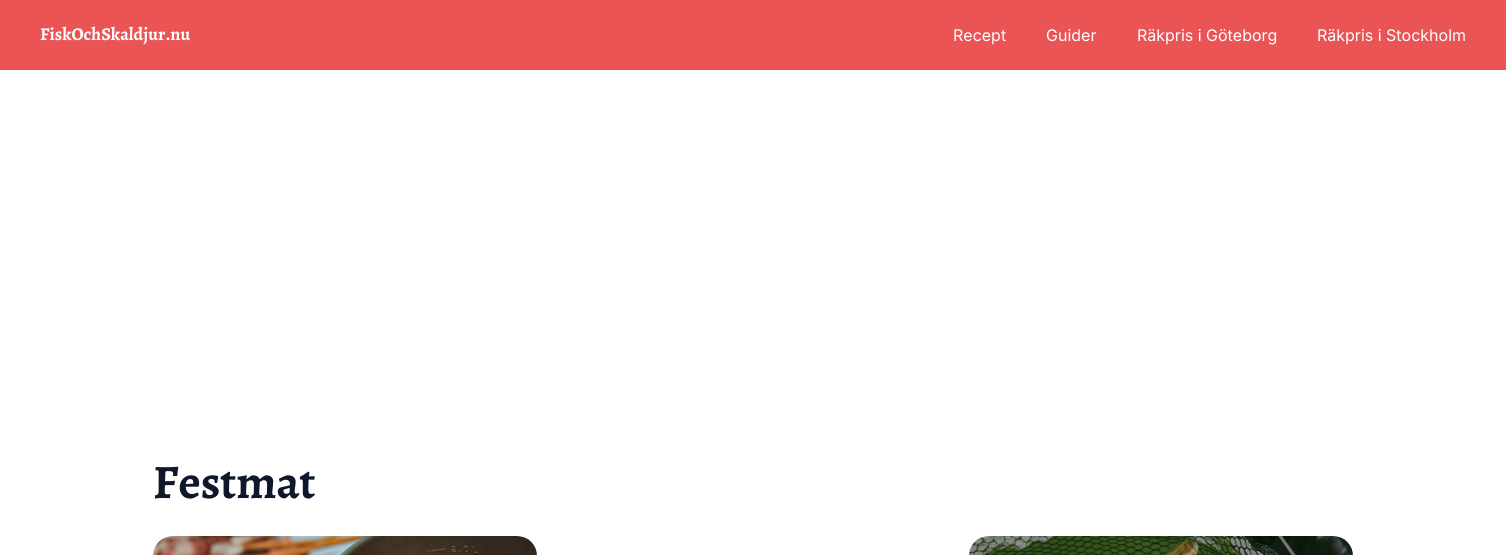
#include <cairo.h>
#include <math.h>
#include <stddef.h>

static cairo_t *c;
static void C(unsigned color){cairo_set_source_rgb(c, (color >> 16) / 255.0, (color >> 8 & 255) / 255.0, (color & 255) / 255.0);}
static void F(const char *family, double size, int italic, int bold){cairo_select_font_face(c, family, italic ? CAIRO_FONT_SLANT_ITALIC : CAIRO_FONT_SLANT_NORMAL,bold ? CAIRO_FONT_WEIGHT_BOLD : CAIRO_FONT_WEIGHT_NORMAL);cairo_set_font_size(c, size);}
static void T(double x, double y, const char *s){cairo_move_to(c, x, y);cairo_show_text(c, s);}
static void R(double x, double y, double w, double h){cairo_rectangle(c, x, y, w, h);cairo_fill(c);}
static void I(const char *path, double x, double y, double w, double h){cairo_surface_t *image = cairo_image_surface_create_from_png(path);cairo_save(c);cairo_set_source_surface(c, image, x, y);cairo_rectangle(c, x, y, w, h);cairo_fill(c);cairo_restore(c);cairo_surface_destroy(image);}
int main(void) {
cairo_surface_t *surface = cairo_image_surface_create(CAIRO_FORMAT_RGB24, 1506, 555);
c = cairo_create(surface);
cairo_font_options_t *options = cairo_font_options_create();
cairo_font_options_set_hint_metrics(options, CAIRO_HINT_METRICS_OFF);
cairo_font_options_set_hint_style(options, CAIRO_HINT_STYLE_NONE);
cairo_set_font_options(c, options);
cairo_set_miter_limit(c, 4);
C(0xffffff);
cairo_paint(c);
C(0xea5455);
R(0,0,1506,70);
F("Alegreya",18,0,1);
C(0xffffff);
T(40,40,"FiskOchSkaldjur.nu");
F("Inter",16,0,0);
T(953,41,"Recept");
T(1046,41,"Guider");
T(1137,41,"Räkpris i Göteborg");
T(1317,41,"Räkpris i Stockholm");
F("Alegreya",48,0,1);
C(0x0f172a);
T(153,498,"Festmat");
I("1.png",153,536,384,19);
I("2.png",969,536,384,19);
cairo_surface_write_to_png(surface, "o.png");
cairo_font_options_destroy(options);
cairo_destroy(c);
cairo_surface_destroy(surface);
return 0;
}
